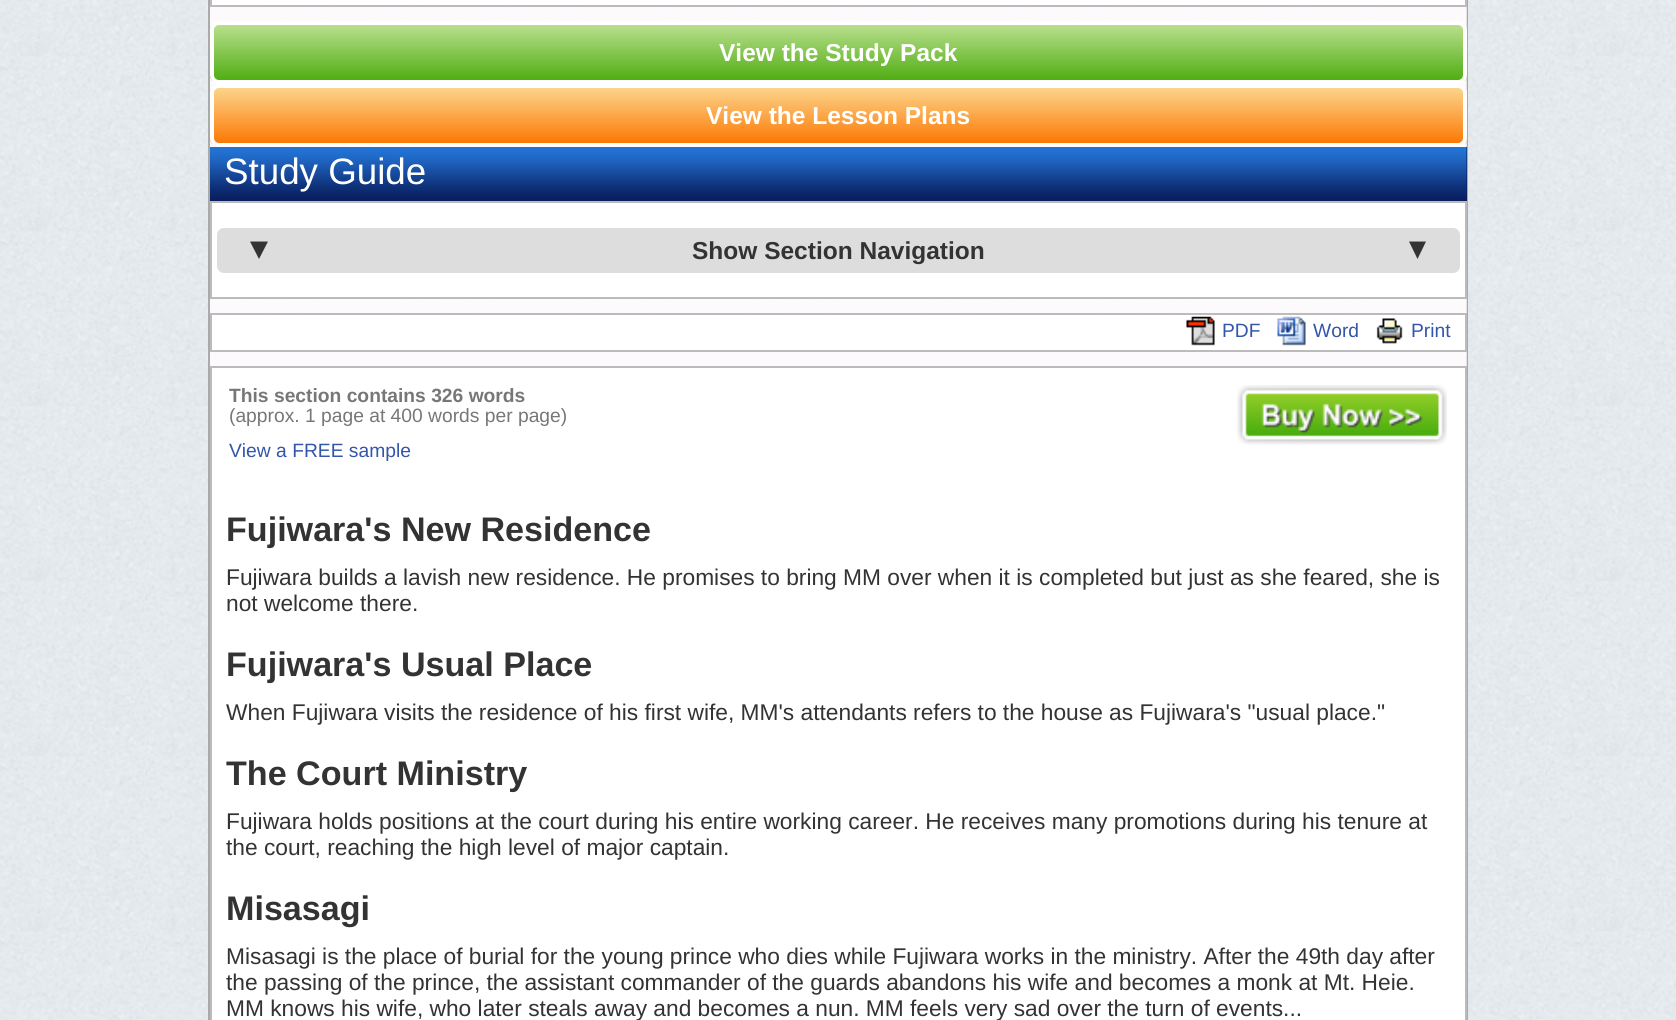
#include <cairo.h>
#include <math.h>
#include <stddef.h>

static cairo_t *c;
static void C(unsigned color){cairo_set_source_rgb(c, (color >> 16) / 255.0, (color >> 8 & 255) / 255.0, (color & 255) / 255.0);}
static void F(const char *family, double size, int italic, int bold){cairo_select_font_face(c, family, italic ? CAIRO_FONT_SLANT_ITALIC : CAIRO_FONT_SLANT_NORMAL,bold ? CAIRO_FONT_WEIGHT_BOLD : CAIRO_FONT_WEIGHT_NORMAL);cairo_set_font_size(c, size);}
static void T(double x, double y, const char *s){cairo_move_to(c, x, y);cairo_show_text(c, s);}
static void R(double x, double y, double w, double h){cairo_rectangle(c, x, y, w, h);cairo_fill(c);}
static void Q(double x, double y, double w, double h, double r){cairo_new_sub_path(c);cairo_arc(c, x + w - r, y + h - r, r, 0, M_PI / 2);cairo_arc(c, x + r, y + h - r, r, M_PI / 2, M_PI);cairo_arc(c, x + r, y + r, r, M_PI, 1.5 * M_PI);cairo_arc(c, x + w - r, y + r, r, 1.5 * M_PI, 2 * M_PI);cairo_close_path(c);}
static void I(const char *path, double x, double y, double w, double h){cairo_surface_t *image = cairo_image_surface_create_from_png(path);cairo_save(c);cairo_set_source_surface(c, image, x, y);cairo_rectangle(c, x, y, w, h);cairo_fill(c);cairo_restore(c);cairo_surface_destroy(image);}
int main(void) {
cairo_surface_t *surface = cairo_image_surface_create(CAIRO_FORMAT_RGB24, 1676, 1020);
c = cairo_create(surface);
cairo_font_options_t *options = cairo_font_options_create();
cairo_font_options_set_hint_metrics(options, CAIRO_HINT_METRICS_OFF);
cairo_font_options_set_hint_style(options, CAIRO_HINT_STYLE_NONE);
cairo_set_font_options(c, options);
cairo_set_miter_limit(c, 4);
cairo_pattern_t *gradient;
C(0xffffff);
cairo_paint(c);
I("1.png",0,0,1676,1020);
cairo_set_source_rgba(c,1,0.988,0.996,0.67);
R(210,7,1256,359);
cairo_rectangle(c,209,-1,1258,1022);
C(0xaaaaaa);
cairo_stroke(c);
cairo_set_source_rgba(c,1,0.988,0.996,0.67);
R(210,7,1257,359);
C(0xffffff);
cairo_rectangle(c,211,-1,1255,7);
cairo_fill_preserve(c);
C(0xbbbbbb);
cairo_stroke(c);
cairo_save(c);
Q(210,21,1257,63,9);
cairo_clip(c);
gradient = cairo_pattern_create_linear(838,24,838,81);
cairo_pattern_add_color_stop_rgba(gradient,0,0.733,0.878,0.565,1);
cairo_pattern_add_color_stop_rgba(gradient,1,0.31,0.678,0.063,1);
cairo_set_source(c,gradient);
cairo_pattern_destroy(gradient);
R(210,25,1257,56);
cairo_restore(c);
Q(212,23,1253,59,7);
C(0xffffff);
cairo_set_line_width(c,4);
cairo_stroke(c);
F("Liberation Sans",24.5,0,1);
T(719,61,"View the Study Pack");
cairo_save(c);
Q(210,84,1257,63,9);
cairo_clip(c);
gradient = cairo_pattern_create_linear(838,87,838,144);
cairo_pattern_add_color_stop_rgba(gradient,0,0.988,0.839,0.553,1);
cairo_pattern_add_color_stop_rgba(gradient,1,0.988,0.467,0.012,1);
cairo_set_source(c,gradient);
cairo_pattern_destroy(gradient);
R(210,88,1257,56);
cairo_restore(c);
Q(212,86,1253,59,7);
cairo_stroke(c);
T(706,124,"View the Lesson Plans");
C(0x091e5e);
R(1466,147,1,54);
I("2.png",210,147,1257,54);
F("Liberation Sans",36.75,0,0);
C(0xffffff);
T(224,184,"Study Guide");
cairo_rectangle(c,211,202,1255,96);
cairo_fill_preserve(c);
C(0xbbbbbb);
cairo_set_line_width(c,2);
cairo_stroke(c);
C(0xdddddd);
Q(217,228,1243,45,7);
cairo_fill(c);
C(0x333333);
cairo_new_path(c);
cairo_move_to(c,250,241.5);
cairo_line_to(c,268,241.5);
cairo_line_to(c,259,259);
cairo_close_path(c);
cairo_fill(c);
F("Liberation Sans",24.5,0,1);
T(692,259,"Show Section Navigation");
cairo_new_path(c);
cairo_move_to(c,1409,241.5);
cairo_line_to(c,1426,241.5);
cairo_line_to(c,1417.5,259);
cairo_close_path(c);
cairo_fill(c);
C(0xffffff);
cairo_rectangle(c,211,314,1255,37);
cairo_fill_preserve(c);
C(0xbbbbbb);
cairo_stroke(c);
I("3.png",1186,316,29,30);
F("Liberation Sans",19.25,0,0);
C(0x3355aa);
T(1222,337,"PDF");
I("4.png",1277,316,29,30);
T(1313,337,"Word");
I("5.png",1376,318,27,26);
T(1411,337,"Print");
C(0xffffff);
cairo_rectangle(c,211,367,1255,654);
cairo_fill_preserve(c);
C(0xbbbbbb);
cairo_stroke(c);
F("Liberation Sans",19.25,0,1);
C(0x777777);
T(229,402,"This section contains 326 words");
F("Liberation Sans",19.25,0,0);
T(229,422,"(approx. 1 page at 400 words per page)");
C(0x3355aa);
T(229,457,"View a FREE sample");
I("6.png",1237,385,210,60);
F("Liberation Sans",34.1,0,1);
C(0x333333);
T(226,541,"Fujiwara's New Residence");
F("Liberation Sans",22.75,0,0);
T(226,585,"Fujiwara builds a lavish new residence. He promises to bring MM over when it is completed but just as she feared, she is");
T(226,611,"not welcome there.");
F("Liberation Sans",34.1,0,1);
T(226,676,"Fujiwara's Usual Place");
F("Liberation Sans",22.75,0,0);
T(226,720,"When Fujiwara visits the residence of his first wife, MM's attendants refers to the house as Fujiwara's \"usual place.\"");
F("Liberation Sans",34.1,0,1);
T(226,785,"The Court Ministry");
F("Liberation Sans",22.75,0,0);
T(226,829,"Fujiwara holds positions at the court during his entire working career. He receives many promotions during his tenure at");
T(226,855,"the court, reaching the high level of major captain.");
F("Liberation Sans",34.1,0,1);
T(226,920,"Misasagi");
F("Liberation Sans",22.75,0,0);
T(226,964,"Misasagi is the place of burial for the young prince who dies while Fujiwara works in the ministry. After the 49th day after");
T(226,990,"the passing of the prince, the assistant commander of the guards abandons his wife and becomes a monk at Mt. Heie.");
T(226,1016,"MM knows his wife, who later steals away and becomes a nun. MM feels very sad over the turn of events...");
cairo_surface_write_to_png(surface, "o.png");
cairo_font_options_destroy(options);
cairo_destroy(c);
cairo_surface_destroy(surface);
return 0;
}
